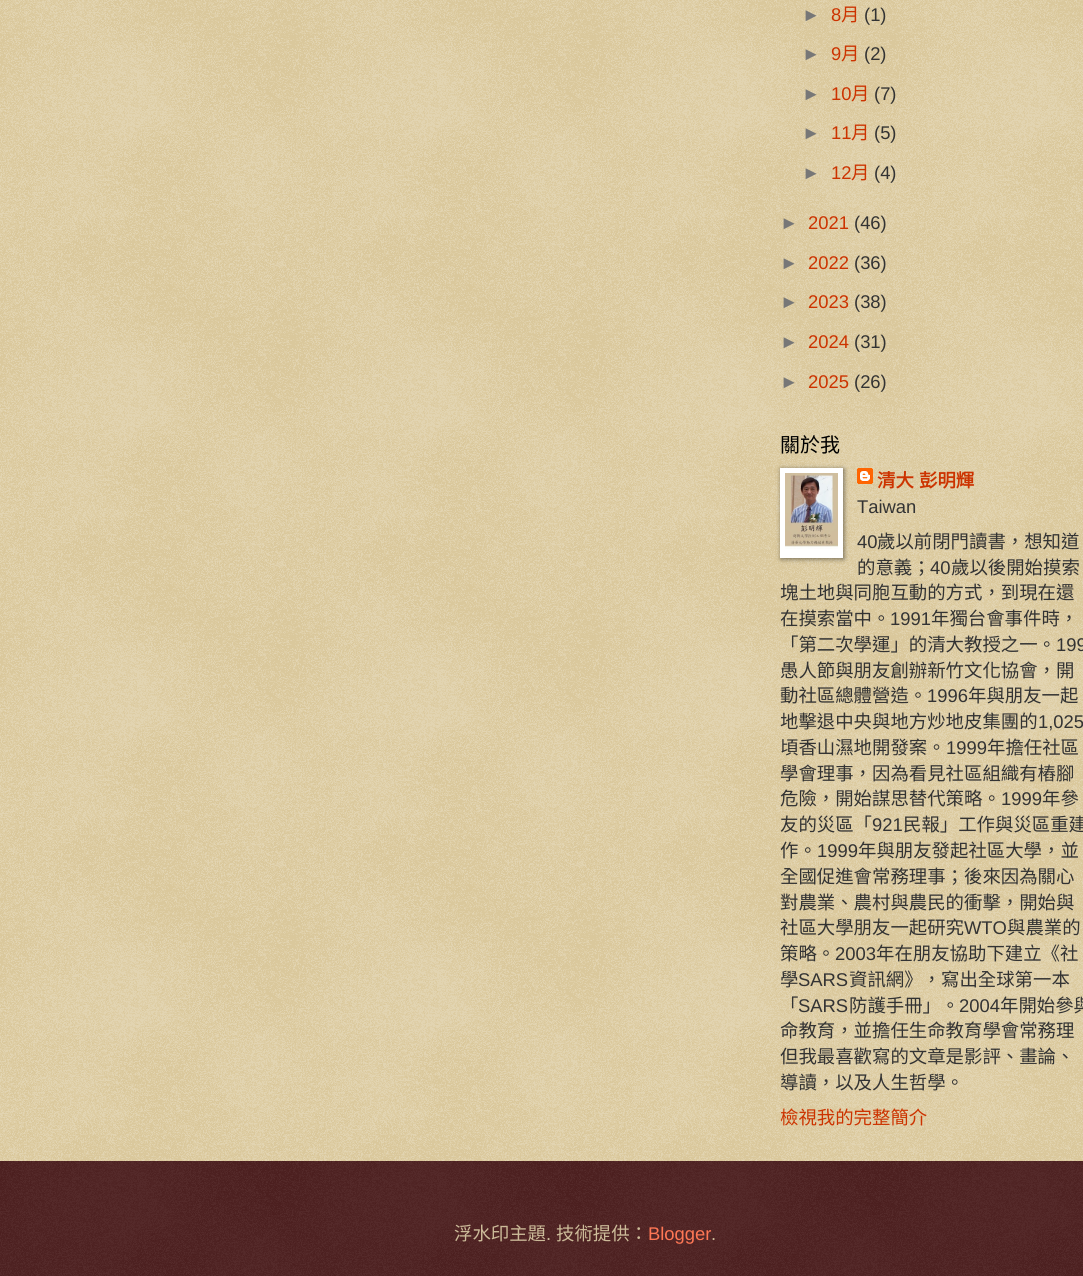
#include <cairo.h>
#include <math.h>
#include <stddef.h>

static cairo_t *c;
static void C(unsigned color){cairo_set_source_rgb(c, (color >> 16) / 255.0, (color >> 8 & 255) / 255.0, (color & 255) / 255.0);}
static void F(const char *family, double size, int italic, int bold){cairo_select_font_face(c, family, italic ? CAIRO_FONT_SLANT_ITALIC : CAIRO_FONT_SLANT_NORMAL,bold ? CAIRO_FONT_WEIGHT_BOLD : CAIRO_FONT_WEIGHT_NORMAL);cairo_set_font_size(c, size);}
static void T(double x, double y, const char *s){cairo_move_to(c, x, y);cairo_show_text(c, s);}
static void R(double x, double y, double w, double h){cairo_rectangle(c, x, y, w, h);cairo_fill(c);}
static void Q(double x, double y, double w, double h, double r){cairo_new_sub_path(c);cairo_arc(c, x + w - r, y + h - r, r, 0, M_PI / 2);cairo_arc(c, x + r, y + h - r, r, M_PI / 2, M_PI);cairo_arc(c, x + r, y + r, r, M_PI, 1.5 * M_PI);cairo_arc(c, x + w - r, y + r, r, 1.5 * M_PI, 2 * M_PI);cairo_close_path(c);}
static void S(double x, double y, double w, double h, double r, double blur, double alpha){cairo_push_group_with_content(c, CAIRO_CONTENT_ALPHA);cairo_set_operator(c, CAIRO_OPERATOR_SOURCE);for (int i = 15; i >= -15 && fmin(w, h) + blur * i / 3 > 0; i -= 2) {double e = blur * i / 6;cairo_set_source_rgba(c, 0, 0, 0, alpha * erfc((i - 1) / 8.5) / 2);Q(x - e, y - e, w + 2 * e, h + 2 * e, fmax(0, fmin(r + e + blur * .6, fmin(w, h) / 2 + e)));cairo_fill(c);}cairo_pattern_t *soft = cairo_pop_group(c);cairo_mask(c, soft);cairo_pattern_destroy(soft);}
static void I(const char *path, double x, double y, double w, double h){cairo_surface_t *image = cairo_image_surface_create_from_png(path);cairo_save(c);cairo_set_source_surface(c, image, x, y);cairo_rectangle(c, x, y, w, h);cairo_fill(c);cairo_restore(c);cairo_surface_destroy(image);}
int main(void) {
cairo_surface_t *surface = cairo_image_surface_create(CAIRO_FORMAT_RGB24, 1083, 1276);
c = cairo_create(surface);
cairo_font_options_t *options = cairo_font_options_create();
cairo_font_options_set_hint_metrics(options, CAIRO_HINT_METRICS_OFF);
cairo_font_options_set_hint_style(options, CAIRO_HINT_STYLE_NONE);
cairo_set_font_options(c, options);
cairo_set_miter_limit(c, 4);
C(0xc0a154);
cairo_paint(c);
I("1.png",0,0,1083,1161);
F("Liberation Sans",18.4,0,0);
C(0x777777);
T(802,21,"►");
C(0xcc3300);
T(831,21,"8");
F("Noto Sans CJK TC",18.4,0,0);
T(841,21,"月");
F("Liberation Sans",18.4,0,0);
C(0x333333);
T(864,21,"(1)");
C(0x777777);
T(802,60,"►");
C(0xcc3300);
T(831,60,"9");
F("Noto Sans CJK TC",18.4,0,0);
T(841,60,"月");
F("Liberation Sans",18.4,0,0);
C(0x333333);
T(864,60,"(2)");
C(0x777777);
T(802,100,"►");
C(0xcc3300);
T(831,100,"10");
F("Noto Sans CJK TC",18.4,0,0);
T(851,100,"月");
F("Liberation Sans",18.4,0,0);
C(0x333333);
T(874,100,"(7)");
C(0x777777);
T(802,139,"►");
C(0xcc3300);
T(831,139,"11");
F("Noto Sans CJK TC",18.4,0,0);
T(851,139,"月");
F("Liberation Sans",18.4,0,0);
C(0x333333);
T(874,139,"(5)");
C(0x777777);
T(802,179,"►");
C(0xcc3300);
T(831,179,"12");
F("Noto Sans CJK TC",18.4,0,0);
T(851,179,"月");
F("Liberation Sans",18.4,0,0);
C(0x333333);
T(874,179,"(4)");
C(0x777777);
T(780,229,"►");
C(0xcc3300);
T(808,229,"2021");
C(0x333333);
T(854,229,"(46)");
C(0x777777);
T(780,269,"►");
C(0xcc3300);
T(808,269,"2022");
C(0x333333);
T(854,269,"(36)");
C(0x777777);
T(780,308,"►");
C(0xcc3300);
T(808,308,"2023");
C(0x333333);
T(854,308,"(38)");
C(0x777777);
T(780,348,"►");
C(0xcc3300);
T(808,348,"2024");
C(0x333333);
T(854,348,"(31)");
C(0x777777);
T(780,388,"►");
C(0xcc3300);
T(808,388,"2025");
C(0x333333);
T(854,388,"(26)");
F("Noto Sans CJK TC",20,0,0);
C(0x000000);
T(780,452,"關於我");
C(0x000000);
S(781,469,63,90,0,2.5,.5);
C(0xffffff);
R(780,468,63,90);
I("2.png",785,473,53,76);
I("3.png",857,468,16,16);
F("Noto Sans CJK TC",18.4,0,1);
C(0xcc3300);
T(877,487,"清大");
T(919,487,"彭明輝");
F("Liberation Sans",18.4,0,0);
C(0x333333);
T(857,513,"Taiwan");
T(857,548,"40");
F("Noto Sans CJK TC",18.4,0,0);
T(877,548,"歲以前閉門讀書，想知道");
T(857,574,"的意義；");
F("Liberation Sans",18.4,0,0);
T(930,574,"40");
F("Noto Sans CJK TC",18.4,0,0);
T(951,574,"歲以後開始摸索");
T(780,599,"塊土地與同胞互動的方式，到現在還");
T(780,625,"在摸索當中。");
F("Liberation Sans",18.4,0,0);
T(890,625,"1991");
F("Noto Sans CJK TC",18.4,0,0);
T(931,625,"年獨台會事件時，");
T(780,651,"「第二次學運」的清大教授之一。");
F("Liberation Sans",18.4,0,0);
T(1056,651,"199");
F("Noto Sans CJK TC",18.4,0,0);
T(780,677,"愚人節與朋友創辦新竹文化協會，開");
T(780,702,"動社區總體營造。");
F("Liberation Sans",18.4,0,0);
T(927,702,"1996");
F("Noto Sans CJK TC",18.4,0,0);
T(968,702,"年與朋友一起");
T(780,728,"地擊退中央與地方炒地皮集團的");
F("Liberation Sans",18.4,0,0);
T(1038,728,"1,025");
F("Noto Sans CJK TC",18.4,0,0);
T(780,754,"頃香山濕地開發案。");
F("Liberation Sans",18.4,0,0);
T(946,754,"1999");
F("Noto Sans CJK TC",18.4,0,0);
T(987,754,"年擔任社區");
T(780,780,"學會理事，因為看見社區組織有樁腳");
T(780,805,"危險，開始謀思替代策略。");
F("Liberation Sans",18.4,0,0);
T(1001,805,"1999");
F("Noto Sans CJK TC",18.4,0,0);
T(1042,805,"年參");
T(780,831,"友的災區「");
F("Liberation Sans",18.4,0,0);
T(872,831,"921");
F("Noto Sans CJK TC",18.4,0,0);
T(903,831,"民報」工作與災區重建");
T(780,857,"作。");
F("Liberation Sans",18.4,0,0);
T(817,857,"1999");
F("Noto Sans CJK TC",18.4,0,0);
T(858,857,"年與朋友發起社區大學，並");
T(780,883,"全國促進會常務理事；後來因為關心");
T(780,909,"對農業、農村與農民的衝擊，開始與");
T(780,934,"社區大學朋友一起研究");
F("Liberation Sans",18.4,0,0);
T(964,934,"WTO");
F("Noto Sans CJK TC",18.4,0,0);
T(1007,934,"與農業的");
T(780,960,"策略。");
F("Liberation Sans",18.4,0,0);
T(835,960,"2003");
F("Noto Sans CJK TC",18.4,0,0);
T(876,960,"年在朋友協助下建立《社");
T(780,986,"學");
F("Liberation Sans",18.4,0,0);
T(798,986,"SARS");
F("Noto Sans CJK TC",18.4,0,0);
T(849,986,"資訊網》，寫出全球第一本");
T(780,1012,"「");
F("Liberation Sans",18.4,0,0);
T(798,1012,"SARS");
F("Noto Sans CJK TC",18.4,0,0);
T(849,1012,"防護手冊」。");
F("Liberation Sans",18.4,0,0);
T(959,1012,"2004");
F("Noto Sans CJK TC",18.4,0,0);
T(1000,1012,"年開始參與");
T(780,1037,"命教育，並擔任生命教育學會常務理");
T(780,1063,"但我最喜歡寫的文章是影評、畫論、");
T(780,1089,"導讀，以及人生哲學。");
C(0xcc3300);
T(780,1124,"檢視我的完整簡介");
C(0x330000);
R(0,1161,1083,115);
I("4.png",0,1161,1083,115);
C(0xccbb99);
T(454,1240,"浮水印主題");
F("Liberation Sans",18.4,0,0);
T(546,1240,".");
F("Noto Sans CJK TC",18.4,0,0);
T(556,1240,"技術提供：");
F("Liberation Sans",18.4,0,0);
C(0xff7755);
T(648,1240,"Blogger");
C(0xccbb99);
T(711,1240,".");
cairo_surface_write_to_png(surface, "o.png");
cairo_font_options_destroy(options);
cairo_destroy(c);
cairo_surface_destroy(surface);
return 0;
}
